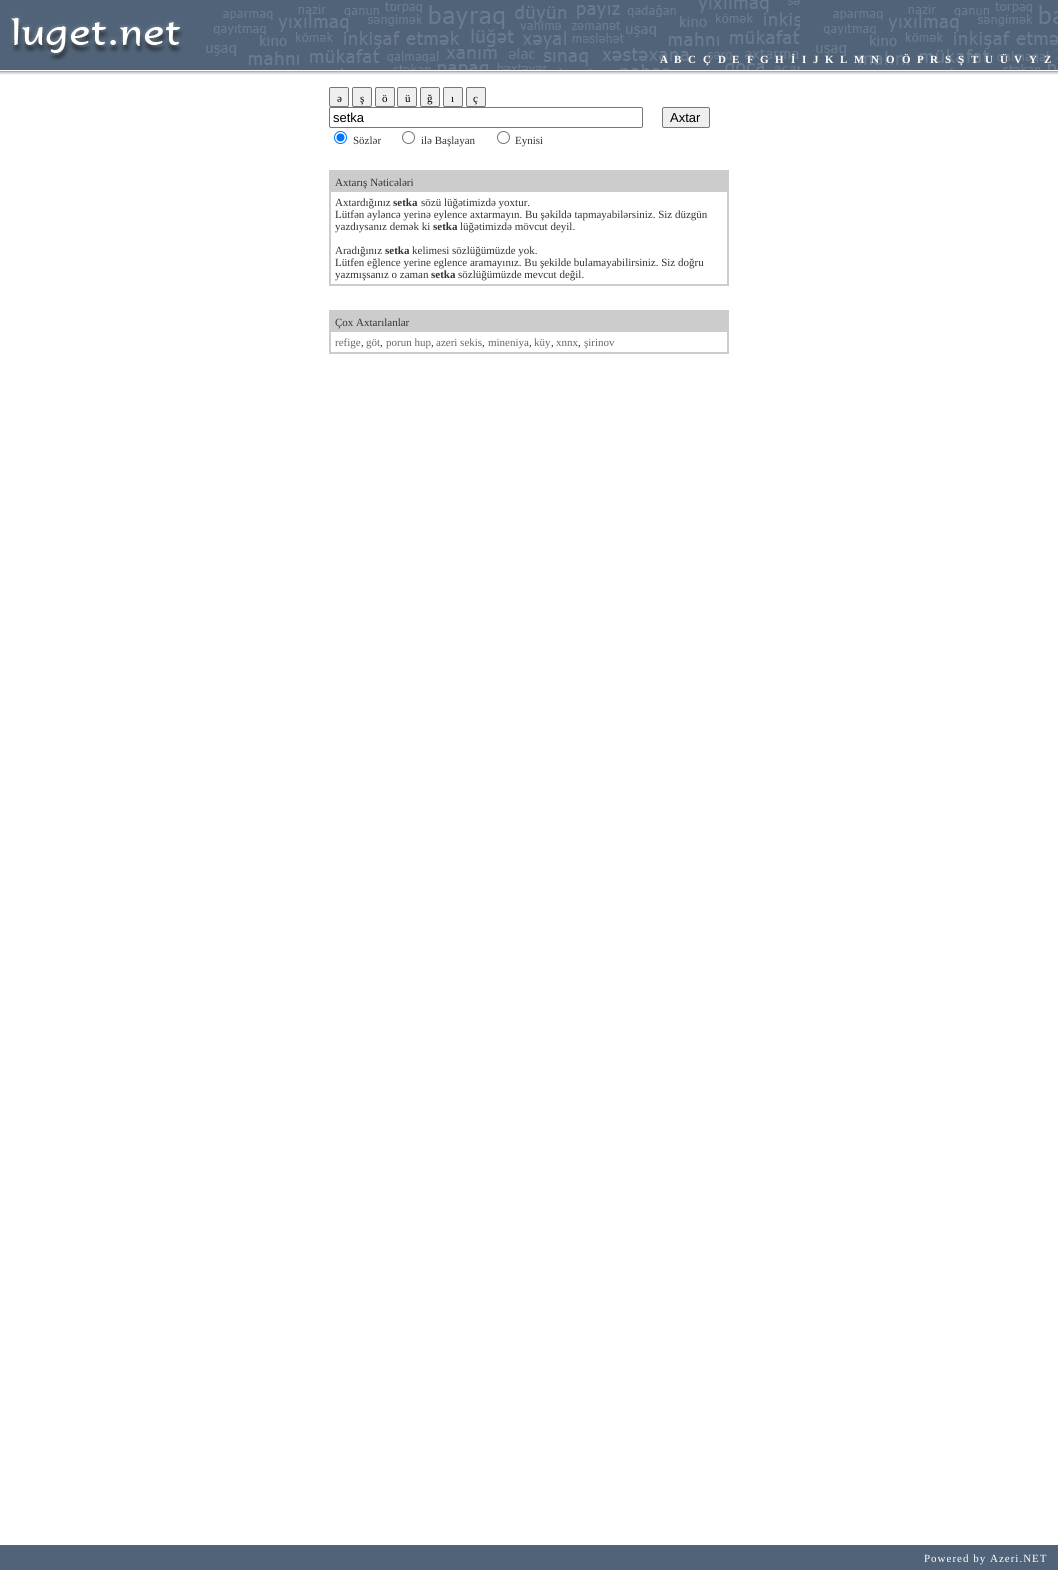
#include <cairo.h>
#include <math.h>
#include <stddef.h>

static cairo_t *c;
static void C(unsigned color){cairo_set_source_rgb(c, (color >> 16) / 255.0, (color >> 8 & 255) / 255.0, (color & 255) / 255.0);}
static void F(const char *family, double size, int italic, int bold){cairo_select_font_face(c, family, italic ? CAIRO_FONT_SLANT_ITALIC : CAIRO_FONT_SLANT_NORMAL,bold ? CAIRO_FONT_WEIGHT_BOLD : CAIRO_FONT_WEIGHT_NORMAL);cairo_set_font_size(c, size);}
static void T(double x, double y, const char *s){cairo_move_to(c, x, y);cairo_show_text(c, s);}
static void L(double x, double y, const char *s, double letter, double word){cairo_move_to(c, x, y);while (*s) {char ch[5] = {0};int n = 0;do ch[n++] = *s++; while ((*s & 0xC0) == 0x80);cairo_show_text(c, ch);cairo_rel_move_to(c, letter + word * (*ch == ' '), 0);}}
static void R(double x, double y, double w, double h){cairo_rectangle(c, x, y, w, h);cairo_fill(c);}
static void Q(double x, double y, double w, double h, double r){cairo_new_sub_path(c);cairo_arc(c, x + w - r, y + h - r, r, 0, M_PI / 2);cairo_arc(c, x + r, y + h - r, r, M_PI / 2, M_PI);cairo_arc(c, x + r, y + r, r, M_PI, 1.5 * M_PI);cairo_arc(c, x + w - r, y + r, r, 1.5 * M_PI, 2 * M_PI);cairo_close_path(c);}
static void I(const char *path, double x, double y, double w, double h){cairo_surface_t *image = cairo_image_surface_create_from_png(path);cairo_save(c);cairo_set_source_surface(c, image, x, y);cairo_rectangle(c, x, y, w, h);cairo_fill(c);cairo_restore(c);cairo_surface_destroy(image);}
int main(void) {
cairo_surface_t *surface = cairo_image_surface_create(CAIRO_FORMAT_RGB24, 1058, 1570);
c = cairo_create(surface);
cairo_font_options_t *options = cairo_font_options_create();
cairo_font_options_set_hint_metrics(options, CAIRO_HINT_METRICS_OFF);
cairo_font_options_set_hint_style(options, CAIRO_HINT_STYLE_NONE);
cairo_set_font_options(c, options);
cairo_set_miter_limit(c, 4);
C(0xffffff);
cairo_paint(c);
C(0x516378);
R(0,0,190,70);
I("1.png",10,15,173,46);
I("2.png",190,0,868,70);
F("Liberation Serif",11,0,1);
C(0xffffff);
T(660,63,"A");
T(674,63,"B");
T(688,63,"C");
T(703,63,"Ç");
T(718,63,"D");
T(732,63,"E");
T(747,63,"F");
T(760,63,"G");
T(775,63,"H");
T(791,63,"İ");
T(802,63,"I");
T(813,63,"J");
T(825,63,"K");
T(840,63,"L");
T(854,63,"M");
T(871,63,"N");
T(886,63,"O");
T(902,63,"Ö");
T(917,63,"P");
T(930,63,"R");
T(945,63,"S");
T(958,63,"Ş");
T(971,63,"T");
T(985,63,"U");
T(1000,63,"Ü");
T(1014,63,"V");
T(1029,63,"Y");
T(1044,63,"Z");
I("3.png",0,71,190,4);
I("4.png",190,71,868,4);
C(0xefefef);
Q(329.5,87.5,19,19,1.5);
cairo_fill_preserve(c);
C(0x767676);
cairo_set_line_width(c,1);
cairo_stroke(c);
F("Liberation Serif",11,0,0);
C(0x000000);
T(337,102,"ə");
C(0xefefef);
Q(352.5,87.5,19,19,1.5);
cairo_fill_preserve(c);
C(0x767676);
cairo_stroke(c);
C(0x000000);
T(360,102,"ş");
C(0xefefef);
Q(375.5,87.5,19,19,1.5);
cairo_fill_preserve(c);
C(0x767676);
cairo_stroke(c);
C(0x000000);
T(382,102,"ö");
C(0xefefef);
Q(397.5,87.5,19,19,1.5);
cairo_fill_preserve(c);
C(0x767676);
cairo_stroke(c);
C(0x000000);
T(405,102,"ü");
C(0xefefef);
Q(420.5,87.5,19,19,1.5);
cairo_fill_preserve(c);
C(0x767676);
cairo_stroke(c);
C(0x000000);
T(427,102,"ğ");
C(0xefefef);
Q(443.5,87.5,19,19,1.5);
cairo_fill_preserve(c);
C(0x767676);
cairo_stroke(c);
C(0x000000);
T(451,102,"ı");
C(0xefefef);
Q(466.5,87.5,19,19,1.5);
cairo_fill_preserve(c);
C(0x767676);
cairo_stroke(c);
C(0x000000);
T(473,102,"ç");
Q(329.5,107.5,313,20,1.5);
C(0x767676);
cairo_stroke(c);
F("Liberation Sans",13,0,0);
C(0x000000);
T(333,122,"setka");
C(0xefefef);
Q(662.5,107.5,47,20,1.5);
cairo_fill_preserve(c);
C(0x767676);
cairo_stroke(c);
C(0x000000);
T(670,122,"Axtar");
cairo_new_path(c);
cairo_arc(c,340.5,137.5,6,0,2 * M_PI);
C(0x0075ff);
cairo_stroke(c);
cairo_arc(c,340.5,137.5,4,0,2 * M_PI);
cairo_fill(c);
F("Liberation Serif",11,0,0);
C(0x333333);
T(353,144,"Sözlər");
cairo_new_path(c);
cairo_arc(c,408.5,137.5,6,0,2 * M_PI);
C(0x767676);
cairo_stroke(c);
C(0x333333);
T(421,144,"ilə Başlayan");
cairo_new_path(c);
cairo_arc(c,503.5,137.5,6,0,2 * M_PI);
C(0x767676);
cairo_stroke(c);
C(0x333333);
T(515,144,"Eynisi");
cairo_rectangle(c,330,171,398,114);
C(0xcccccc);
cairo_set_line_width(c,2);
cairo_stroke(c);
R(331,172,396,20);
C(0x333333);
T(335,186,"Axtarış Nəticələri");
T(335,206,"Axtardığınız");
F("Liberation Serif",11,0,1);
T(393,206,"setka");
F("Liberation Serif",11,0,0);
T(421,206,"sözü lüğətimizdə yoxtur.");
T(335,218,"Lütfən əyləncə yerinə eylence axtarmayın. Bu şəkildə tapmayabilərsiniz. Siz düzgün");
T(335,230,"yazdıysanız demək ki");
F("Liberation Serif",11,0,1);
T(433,230,"setka");
F("Liberation Serif",11,0,0);
T(460,230,"lüğətimizdə mövcut deyil.");
T(335,254,"Aradığınız");
F("Liberation Serif",11,0,1);
T(385,254,"setka");
F("Liberation Serif",11,0,0);
T(412,254,"kelimesi sözlüğümüzde yok.");
T(335,266,"Lütfen eğlence yerine eglence aramayınız. Bu şekilde bulamayabilirsiniz. Siz doğru");
T(335,278,"yazmışsanız o zaman");
F("Liberation Serif",11,0,1);
T(431,278,"setka");
F("Liberation Serif",11,0,0);
T(458,278,"sözlüğümüzde mevcut değil.");
cairo_rectangle(c,330,311,398,42);
C(0xcccccc);
cairo_stroke(c);
R(331,312,396,20);
C(0x333333);
T(335,326,"Çox Axtarılanlar");
C(0x666666);
T(335,346,"refige");
C(0x333333);
T(361,346,",");
C(0x666666);
T(366,346,"göt");
C(0x333333);
T(380,346,",");
C(0x666666);
T(386,346,"porun hup");
C(0x333333);
T(431,346,",");
C(0x666666);
T(436,346,"azeri sekis");
C(0x333333);
T(482,346,",");
C(0x666666);
T(488,346,"mineniya");
C(0x333333);
T(529,346,",");
C(0x666666);
T(534,346,"küy");
C(0x333333);
T(551,346,",");
C(0x666666);
T(556,346,"xnnx");
C(0x333333);
T(578,346,",");
C(0x666666);
T(584,346,"şirinov");
C(0x516378);
R(0,1545,1058,25);
C(0xffffff);
L(924,1562,"Powered by Azeri.NET",1,0);
cairo_surface_write_to_png(surface, "o.png");
cairo_font_options_destroy(options);
cairo_destroy(c);
cairo_surface_destroy(surface);
return 0;
}
